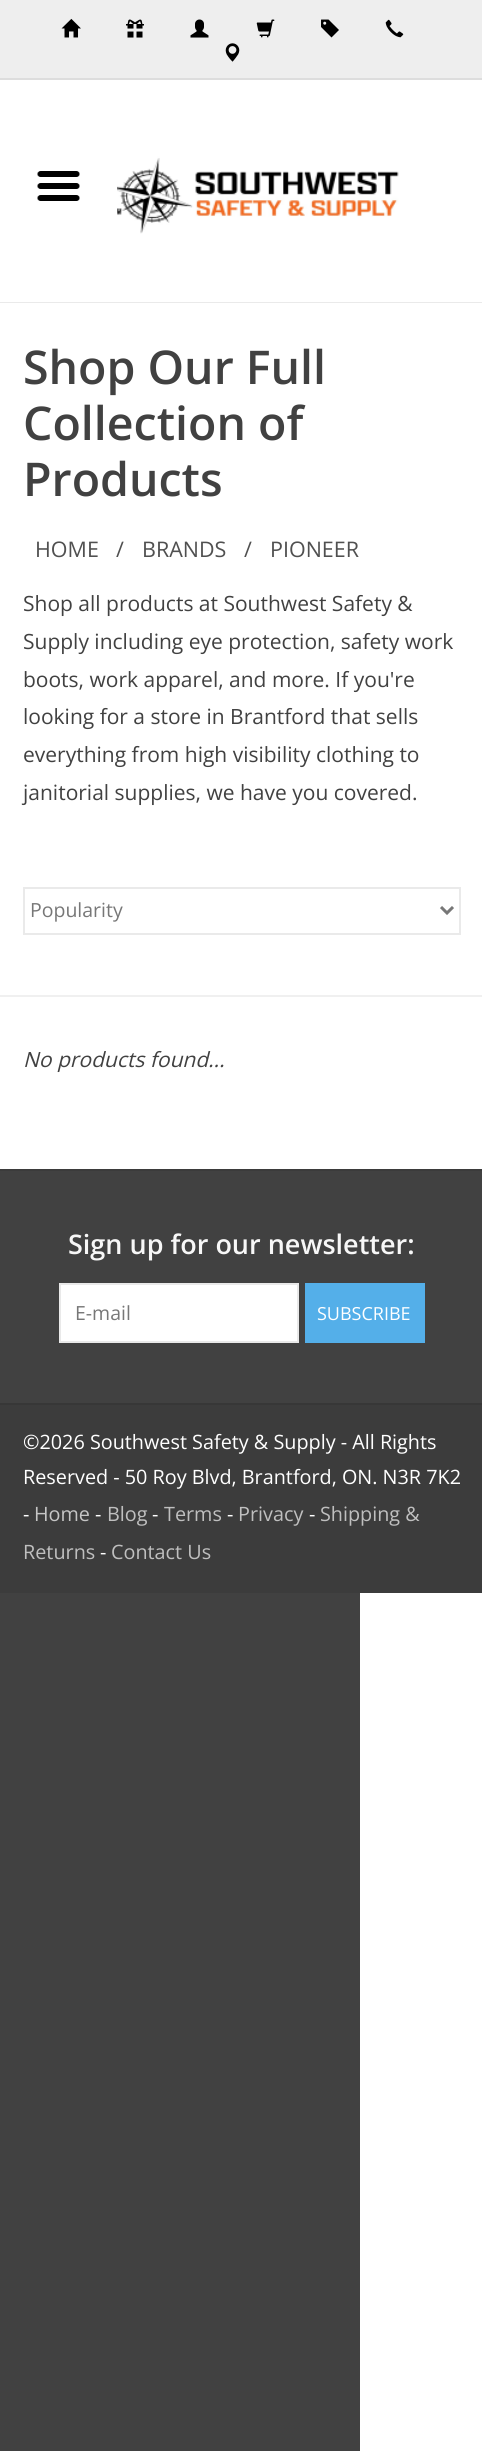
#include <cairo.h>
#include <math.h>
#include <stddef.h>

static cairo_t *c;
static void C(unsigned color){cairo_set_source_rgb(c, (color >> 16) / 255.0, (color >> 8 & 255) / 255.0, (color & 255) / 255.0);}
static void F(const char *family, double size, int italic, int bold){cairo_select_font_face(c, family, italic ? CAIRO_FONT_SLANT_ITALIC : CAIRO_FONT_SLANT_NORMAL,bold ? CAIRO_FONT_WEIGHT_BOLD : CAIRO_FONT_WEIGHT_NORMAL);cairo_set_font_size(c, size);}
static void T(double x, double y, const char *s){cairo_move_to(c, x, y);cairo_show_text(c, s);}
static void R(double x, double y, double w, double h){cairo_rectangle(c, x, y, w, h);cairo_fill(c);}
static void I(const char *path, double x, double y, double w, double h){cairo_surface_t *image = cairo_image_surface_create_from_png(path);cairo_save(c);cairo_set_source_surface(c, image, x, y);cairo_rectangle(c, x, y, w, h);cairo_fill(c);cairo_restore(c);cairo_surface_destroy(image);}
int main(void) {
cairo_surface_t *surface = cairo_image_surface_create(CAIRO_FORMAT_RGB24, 482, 2451);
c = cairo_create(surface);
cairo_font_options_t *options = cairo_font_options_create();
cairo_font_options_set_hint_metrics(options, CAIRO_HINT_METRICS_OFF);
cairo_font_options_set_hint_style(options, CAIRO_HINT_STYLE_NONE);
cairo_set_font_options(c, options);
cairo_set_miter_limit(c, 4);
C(0xffffff);
cairo_paint(c);
C(0xeeeeee);
R(0,0,482,78);
C(0xdddddd);
R(0,78,482,2);
I("1.png",61,18,20,20);
I("2.png",126,19,18,19);
I("3.png",190,19,19,19);
I("4.png",256,19,19,19);
I("5.png",321,19,18,19);
I("6.png",385,19,19,19);
I("7.png",225,43,15,19);
C(0xeaeaea);
R(0,302,482,1);
I("8.png",117,124,282,133);
I("9.png",37,171,43,30);
C(0x414141);
R(0,1593,360,858);
F("Open Sans SemiBold",46.5,0,0);
T(23,384,"Shop Our Full");
T(23,440,"Collection of");
T(23,496,"Products");
F("Open Sans",21.5,0,0);
C(0x505050);
T(35,557,"HOME");
T(116,557,"/");
T(142,557,"BRANDS");
T(244,557,"/");
T(270,557,"PIONEER");
F("Open Sans",21,0,0);
C(0x414141);
T(23,611,"Shop all products at Southwest Safety &");
T(23,649,"Supply including eye protection, safety work");
T(23,687,"boots, work apparel, and more. If you're");
T(23,724,"looking for a store in Brantford that sells");
T(23,762,"everything from high visibility clothing to");
T(23,800,"janitorial supplies, we have you covered.");
C(0xf0f0f0);
R(0,995,482,2);
cairo_rectangle(c,24,888,436,46);
C(0xeaeaea);
cairo_stroke(c);
cairo_new_path(c);
cairo_move_to(c,441,907);
cairo_line_to(c,447,913);
cairo_line_to(c,453,907);
C(0x777777);
cairo_set_line_width(c,3);
cairo_stroke(c);
F("Open Sans",19.5,0,0);
T(30,917,"Popularity");
F("Open Sans",21,1,0);
C(0x414141);
T(23,1067,"No products found...");
R(0,1171,482,232);
C(0x3b3b3b);
R(0,1169,482,2);
F("Open Sans SemiBold",27,0,0);
C(0xf7f7f7);
T(68,1254,"Sign up for our newsletter:");
C(0xffffff);
cairo_rectangle(c,60,1284,238,58);
cairo_fill_preserve(c);
C(0xe9e9e9);
cairo_set_line_width(c,2);
cairo_stroke(c);
F("Open Sans",19.5,0,0);
C(0x777777);
T(75,1320,"E-mail");
C(0x54afe9);
R(305,1283,120,60);
F("Open Sans",18,0,0);
C(0xffffff);
T(317,1320,"SUBSCRIBE");
C(0x373737);
R(0,1403,482,2);
C(0x3c3c3c);
R(0,1405,482,188);
F("Open Sans",19.8,0,0);
C(0xffffff);
T(23,1449,"©2026 Southwest Safety & Supply - All Rights");
T(23,1484,"Reserved - 50 Roy Blvd, Brantford, ON. N3R 7K2");
T(23,1521,"-");
C(0xc5c5c5);
T(34,1521,"Home");
C(0xffffff);
T(95,1521,"-");
C(0xbfbfbf);
T(107,1521,"Blog");
C(0xffffff);
T(152,1521,"-");
C(0xbfbfbf);
T(164,1521,"Terms");
C(0xffffff);
T(227,1521,"-");
C(0xbfbfbf);
T(238,1521,"Privacy");
C(0xffffff);
T(309,1521,"-");
C(0xbfbfbf);
T(320,1521,"Shipping &");
T(23,1559,"Returns");
C(0xffffff);
T(100,1559,"-");
C(0xbfbfbf);
T(111,1559,"Contact Us");
cairo_surface_write_to_png(surface, "o.png");
cairo_font_options_destroy(options);
cairo_destroy(c);
cairo_surface_destroy(surface);
return 0;
}
